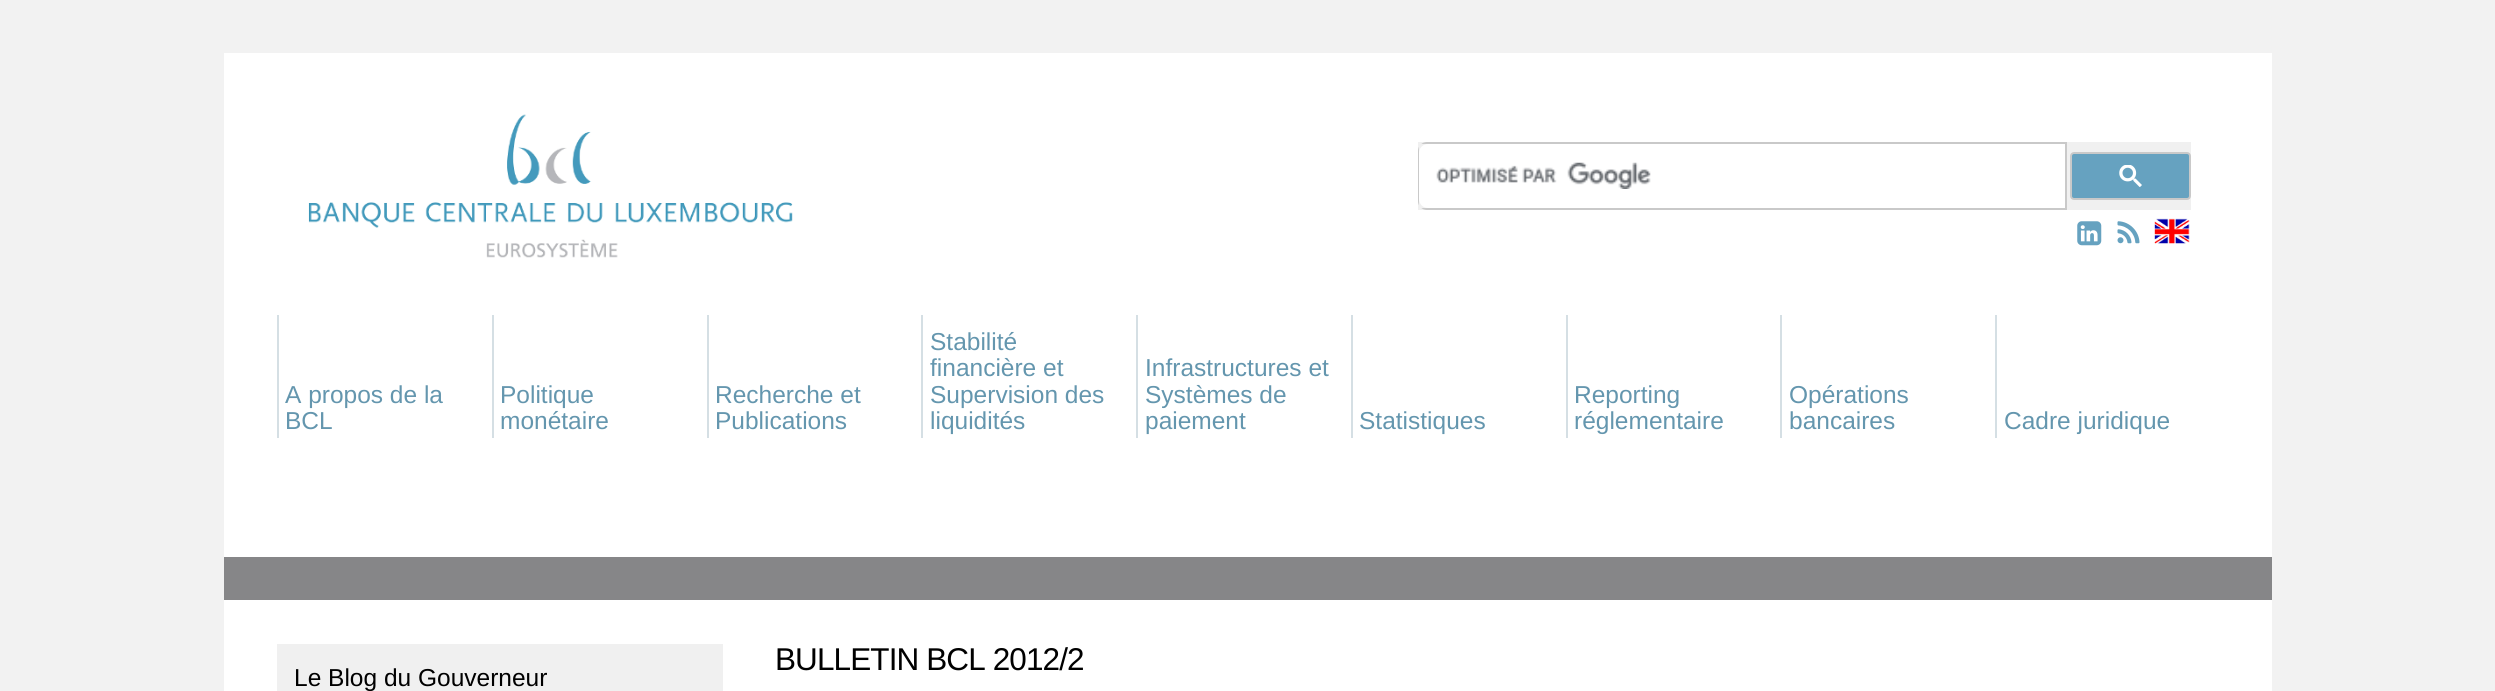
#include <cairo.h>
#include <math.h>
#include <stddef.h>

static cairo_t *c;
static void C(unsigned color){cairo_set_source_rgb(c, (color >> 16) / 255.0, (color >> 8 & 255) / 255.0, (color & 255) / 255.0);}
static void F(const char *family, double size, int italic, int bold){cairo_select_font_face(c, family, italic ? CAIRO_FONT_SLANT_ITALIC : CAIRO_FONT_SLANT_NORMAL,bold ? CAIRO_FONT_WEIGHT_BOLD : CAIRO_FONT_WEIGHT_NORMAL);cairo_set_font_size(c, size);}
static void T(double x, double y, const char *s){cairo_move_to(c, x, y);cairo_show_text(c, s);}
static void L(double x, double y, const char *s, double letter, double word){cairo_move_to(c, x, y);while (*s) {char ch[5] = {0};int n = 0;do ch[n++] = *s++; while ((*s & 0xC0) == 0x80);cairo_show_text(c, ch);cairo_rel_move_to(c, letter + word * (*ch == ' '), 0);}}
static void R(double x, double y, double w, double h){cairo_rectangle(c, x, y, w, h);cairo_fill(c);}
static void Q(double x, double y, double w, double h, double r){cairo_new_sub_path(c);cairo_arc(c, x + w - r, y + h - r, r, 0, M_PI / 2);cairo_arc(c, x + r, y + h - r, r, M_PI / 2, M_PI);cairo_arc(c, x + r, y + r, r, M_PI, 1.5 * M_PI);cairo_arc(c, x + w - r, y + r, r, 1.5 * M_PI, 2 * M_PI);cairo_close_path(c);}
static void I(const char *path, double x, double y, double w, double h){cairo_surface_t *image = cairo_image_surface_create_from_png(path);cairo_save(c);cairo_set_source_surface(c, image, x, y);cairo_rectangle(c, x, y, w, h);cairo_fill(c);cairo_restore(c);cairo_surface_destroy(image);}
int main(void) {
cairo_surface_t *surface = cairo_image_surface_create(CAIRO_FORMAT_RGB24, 2495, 691);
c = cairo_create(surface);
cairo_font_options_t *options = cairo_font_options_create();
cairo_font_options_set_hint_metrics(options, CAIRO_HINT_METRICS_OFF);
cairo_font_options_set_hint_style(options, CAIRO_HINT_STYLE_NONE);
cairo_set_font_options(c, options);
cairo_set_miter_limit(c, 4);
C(0xf2f2f2);
cairo_paint(c);
C(0xffffff);
R(224,53,2048,638);
I("1.png",308,114,485,144);
C(0xf0f0f0);
R(1418,142,773,68);
cairo_new_path(c);
cairo_move_to(c,1427,143);
cairo_line_to(c,2066,143);
cairo_line_to(c,2066,209);
cairo_line_to(c,1427,209);
cairo_curve_to(c,1422.5,209,1419,205.5,1419,201);
cairo_line_to(c,1419,151);
cairo_curve_to(c,1419,146.5,1422.5,143,1427,143);
cairo_close_path(c);
C(0xc9c9c9);
cairo_stroke(c);
C(0xf0f0f0);
R(1419,144,7,64);
C(0xffffff);
cairo_new_path(c);
cairo_move_to(c,1428,144);
cairo_line_to(c,2065,144);
cairo_line_to(c,2065,208);
cairo_line_to(c,1428,208);
cairo_curve_to(c,1423,208,1419,204,1419,199);
cairo_line_to(c,1419,153);
cairo_curve_to(c,1419,148,1423,144,1428,144);
cairo_close_path(c);
cairo_fill(c);
I("2.png",1436,162,215,27);
C(0x66a2c0);
Q(2071,153,119,46,3);
cairo_fill_preserve(c);
C(0xc9c9c9);
cairo_stroke(c);
I("3.png",2119,165,23,22);
I("4.png",2077,221,25,25);
I("5.png",2117,221,23,23);
I("6.png",2154,218,36,26);
C(0xd5dfe4);
R(277,315,2,123);
F("Liberation Sans",24.5,0,0);
C(0x6496ae);
T(285,403,"A propos de la");
T(285,429,"BCL");
C(0xd5dfe4);
R(492,315,2,123);
C(0x6496ae);
T(500,403,"Politique");
T(500,429,"monétaire");
C(0xd5dfe4);
R(707,315,2,123);
C(0x6496ae);
T(715,403,"Recherche et");
T(715,429,"Publications");
C(0xd5dfe4);
R(921,315,2,123);
C(0x6496ae);
T(930,350,"Stabilité");
T(930,376,"financière et");
T(930,403,"Supervision des");
T(930,429,"liquidités");
C(0xd5dfe4);
R(1136,315,2,123);
C(0x6496ae);
T(1145,376,"Infrastructures et");
T(1145,403,"Systèmes de");
T(1145,429,"paiement");
C(0xd5dfe4);
R(1351,315,2,123);
C(0x6496ae);
T(1359,429,"Statistiques");
C(0xd5dfe4);
R(1566,315,2,123);
C(0x6496ae);
T(1574,403,"Reporting");
T(1574,429,"réglementaire");
C(0xd5dfe4);
R(1780,315,2,123);
C(0x6496ae);
T(1789,403,"Opérations");
T(1789,429,"bancaires");
C(0xd5dfe4);
R(1995,315,2,123);
C(0x6496ae);
T(2004,429,"Cadre juridique");
C(0x868688);
R(224,557,2048,43);
F("Liberation Sans",31.5,0,0);
C(0x000000);
L(775,670,"BULLETIN BCL 2012/2",-.9,0);
C(0xf0f0f0);
R(277,644,446,47);
F("Liberation Sans",24.5,0,0);
C(0x000000);
T(294,686,"Le Blog du Gouverneur");
cairo_surface_write_to_png(surface, "o.png");
cairo_font_options_destroy(options);
cairo_destroy(c);
cairo_surface_destroy(surface);
return 0;
}
